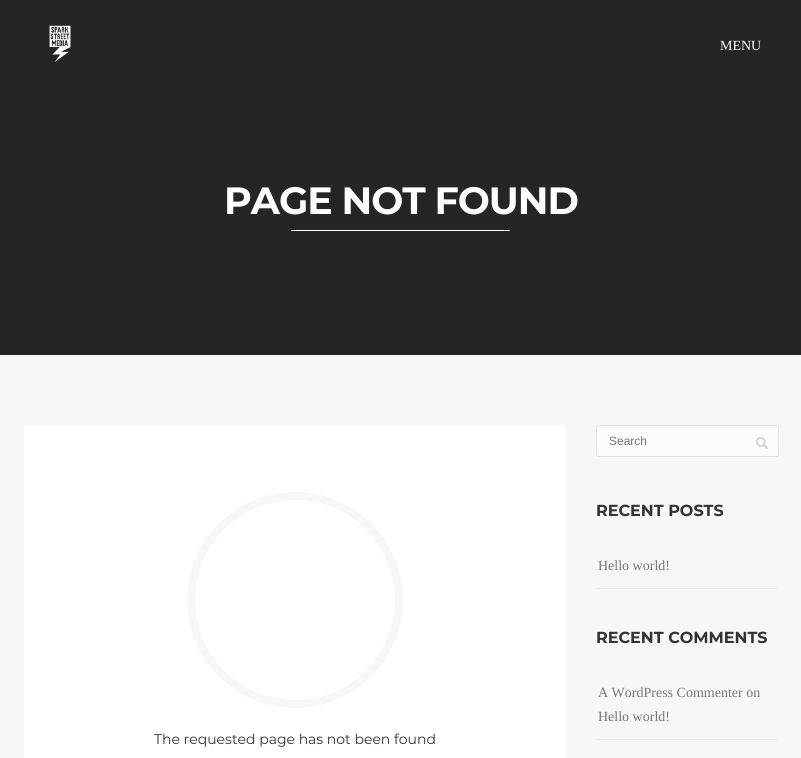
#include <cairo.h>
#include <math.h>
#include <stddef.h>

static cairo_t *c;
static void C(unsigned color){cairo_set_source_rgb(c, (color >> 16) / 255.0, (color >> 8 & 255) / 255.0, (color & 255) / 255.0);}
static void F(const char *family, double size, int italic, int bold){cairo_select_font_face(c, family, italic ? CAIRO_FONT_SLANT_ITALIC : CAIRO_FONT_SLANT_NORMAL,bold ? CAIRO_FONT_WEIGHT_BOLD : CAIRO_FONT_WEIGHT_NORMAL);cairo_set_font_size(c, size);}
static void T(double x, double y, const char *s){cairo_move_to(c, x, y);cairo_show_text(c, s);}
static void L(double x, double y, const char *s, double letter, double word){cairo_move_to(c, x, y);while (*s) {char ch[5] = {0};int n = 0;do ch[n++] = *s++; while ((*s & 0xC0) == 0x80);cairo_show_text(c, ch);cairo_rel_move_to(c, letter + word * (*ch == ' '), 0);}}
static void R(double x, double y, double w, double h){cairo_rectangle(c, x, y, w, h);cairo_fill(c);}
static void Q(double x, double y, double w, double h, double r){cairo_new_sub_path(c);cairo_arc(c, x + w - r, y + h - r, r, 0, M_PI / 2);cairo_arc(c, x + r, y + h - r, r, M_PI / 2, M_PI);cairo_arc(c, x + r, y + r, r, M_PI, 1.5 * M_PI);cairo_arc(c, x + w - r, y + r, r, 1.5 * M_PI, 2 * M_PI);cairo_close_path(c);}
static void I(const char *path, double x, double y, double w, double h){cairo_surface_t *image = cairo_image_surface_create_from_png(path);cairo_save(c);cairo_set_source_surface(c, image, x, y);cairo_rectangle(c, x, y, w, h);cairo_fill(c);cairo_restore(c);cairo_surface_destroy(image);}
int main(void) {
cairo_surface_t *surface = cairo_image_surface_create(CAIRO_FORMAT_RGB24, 801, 758);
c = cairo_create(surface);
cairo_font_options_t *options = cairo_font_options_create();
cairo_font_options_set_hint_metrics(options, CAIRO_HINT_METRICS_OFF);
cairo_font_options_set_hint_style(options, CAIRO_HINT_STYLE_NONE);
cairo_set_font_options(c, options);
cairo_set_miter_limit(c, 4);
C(0xf7f7f7);
cairo_paint(c);
C(0x252525);
R(0,0,801,355);
I("1.png",49,25,22,37);
F("Liberation Serif",14,0,0);
C(0xffffff);
T(720,50,"MENU");
F("Montserrat",38,0,1);
L(224,214,"PAGE NOT FOUND",-1,0);
R(291,230,219,1);
C(0xfcfcfc);
Q(596.5,425.5,182,31,1.5);
cairo_fill_preserve(c);
C(0xe3e3e3);
cairo_set_line_width(c,1);
cairo_stroke(c);
F("Liberation Sans",12,0,0);
C(0x777777);
T(609,445,"Search");
I("2.png",756,437,12,12);
F("Montserrat",16,0,1);
C(0x333332);
T(596,516,"RECENT POSTS");
C(0xebebeb);
R(596,588,181,1);
F("Liberation Serif",14,0,0);
C(0x777777);
T(598,570,"Hello world!");
F("Montserrat",16,0,1);
C(0x333332);
T(596,643,"RECENT COMMENTS");
C(0xebebeb);
R(596,739,181,1);
F("Liberation Serif",14,0,0);
C(0x777777);
T(598,697,"A WordPress Commenter on");
T(598,721,"Hello world!");
C(0xffffff);
R(24,425,542,333);
cairo_new_path(c);
cairo_arc(c,295,600,104,0,2 * M_PI);
C(0xf7f7f7);
cairo_set_line_width(c,8);
cairo_stroke(c);
F("Montserrat",14,0,0);
C(0x333332);
T(154,744,"The requested page has not been found");
cairo_surface_write_to_png(surface, "o.png");
cairo_font_options_destroy(options);
cairo_destroy(c);
cairo_surface_destroy(surface);
return 0;
}
